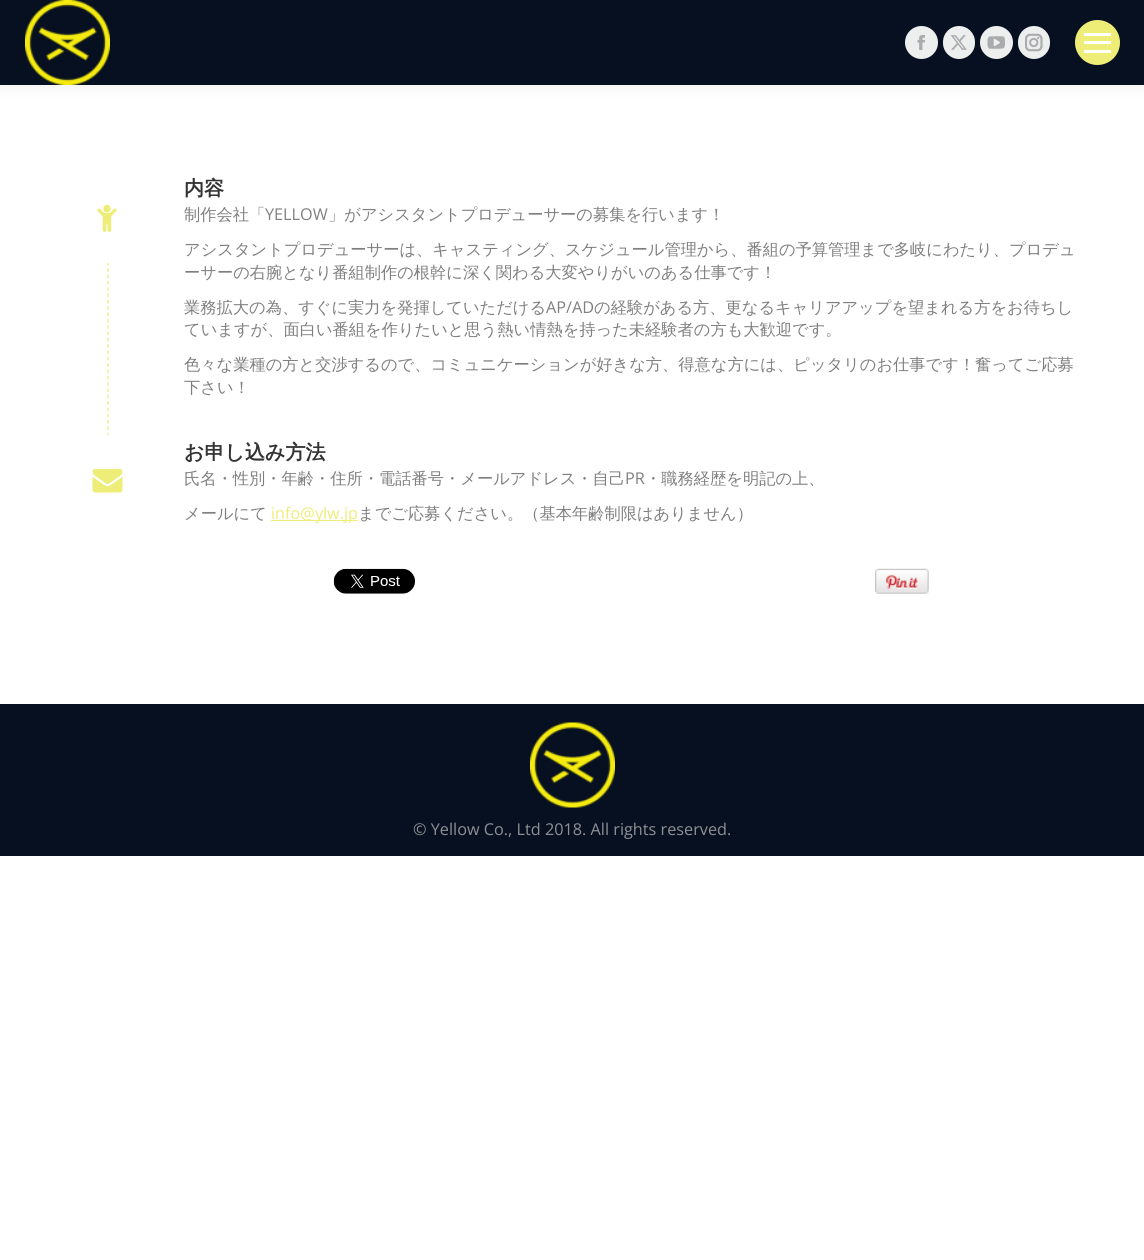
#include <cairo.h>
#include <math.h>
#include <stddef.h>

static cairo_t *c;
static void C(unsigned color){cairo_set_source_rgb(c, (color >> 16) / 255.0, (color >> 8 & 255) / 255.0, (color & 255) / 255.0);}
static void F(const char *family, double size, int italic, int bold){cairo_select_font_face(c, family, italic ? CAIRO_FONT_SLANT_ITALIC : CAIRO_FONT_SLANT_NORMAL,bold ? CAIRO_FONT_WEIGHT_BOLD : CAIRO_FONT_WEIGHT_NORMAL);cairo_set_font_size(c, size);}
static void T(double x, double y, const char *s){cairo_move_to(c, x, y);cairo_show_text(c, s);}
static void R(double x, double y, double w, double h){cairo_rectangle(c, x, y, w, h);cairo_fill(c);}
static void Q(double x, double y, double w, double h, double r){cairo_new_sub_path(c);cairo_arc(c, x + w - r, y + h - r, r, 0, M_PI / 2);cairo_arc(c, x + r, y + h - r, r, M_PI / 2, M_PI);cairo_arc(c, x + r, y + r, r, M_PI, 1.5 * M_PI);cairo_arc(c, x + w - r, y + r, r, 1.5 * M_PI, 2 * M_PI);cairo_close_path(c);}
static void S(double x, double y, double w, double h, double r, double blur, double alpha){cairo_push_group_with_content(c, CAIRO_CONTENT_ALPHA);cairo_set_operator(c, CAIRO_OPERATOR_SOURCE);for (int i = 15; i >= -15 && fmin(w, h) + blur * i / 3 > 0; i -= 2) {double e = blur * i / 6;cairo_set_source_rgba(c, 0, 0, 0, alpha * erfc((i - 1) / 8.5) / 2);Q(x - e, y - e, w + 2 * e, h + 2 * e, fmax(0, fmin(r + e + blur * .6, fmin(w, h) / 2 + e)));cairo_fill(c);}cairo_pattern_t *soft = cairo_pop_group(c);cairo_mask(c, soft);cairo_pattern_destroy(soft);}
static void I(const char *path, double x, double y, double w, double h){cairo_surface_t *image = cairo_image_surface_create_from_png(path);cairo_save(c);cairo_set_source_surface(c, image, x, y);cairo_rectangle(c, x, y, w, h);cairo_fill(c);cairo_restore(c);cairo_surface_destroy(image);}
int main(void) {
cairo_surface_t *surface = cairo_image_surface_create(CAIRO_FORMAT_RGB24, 1144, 1260);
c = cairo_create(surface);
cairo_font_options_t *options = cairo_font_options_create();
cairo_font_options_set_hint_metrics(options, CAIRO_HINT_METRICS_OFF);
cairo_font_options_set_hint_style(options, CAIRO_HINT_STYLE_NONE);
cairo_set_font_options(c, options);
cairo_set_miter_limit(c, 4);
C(0xffffff);
cairo_paint(c);
C(0x000000);
S(-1,-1,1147,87,0,9.5,.07);
C(0x061020);
R(0,0,1144,85);
I("1.png",25,0,85,85);
C(0xedeeee);
cairo_arc(c,921.5,42.5,16.5,0,2 * M_PI);
cairo_fill(c);
I("2.png",917,35,8,15);
Q(943,26,32,33,16);
cairo_fill(c);
I("3.png",950,35,17,15);
cairo_arc(c,996.5,42.5,16.5,0,2 * M_PI);
cairo_fill(c);
I("4.png",987,36,18,13);
Q(1018,26,32,33,16);
cairo_fill(c);
I("5.png",1025,33,18,19);
C(0xeded78);
cairo_arc(c,1097.5,42.5,22.5,0,2 * M_PI);
cairo_fill(c);
C(0xffffff);
R(1084,33,27,3);
R(1084,41,27,3);
R(1084,50,27,3);
cairo_new_path(c);
cairo_move_to(c,108,217.5);
cairo_line_to(c,108,442.5);
C(0xeded78);
cairo_set_line_width(c,1.2);
cairo_set_dash(c,(double[]){3.75,2.58},2,0);
cairo_stroke(c);
C(0xffffff);
R(107,217,2,46);
I("6.png",97,204,20,28);
F("WenQuanYi Zen Hei",20,0,1);
C(0x333333);
T(184,195,"内容");
F("WenQuanYi Zen Hei Medium",16.25,0,0);
C(0x7f7f7f);
T(184,220,"制作会社「");
F("Open Sans",16.25,0,0);
T(265,220,"YELLOW");
F("WenQuanYi Zen Hei Medium",16.25,0,0);
T(328,220,"」がアシスタントプロデューサーの募集を行います！");
T(184,255,"アシスタントプロデューサーは、キャスティング、スケジュール管理から、番組の予算管理まで多岐にわたり、プロデュ");
T(184,278,"ーサーの右腕となり番組制作の根幹に深く関わる大変やりがいのある仕事です！");
T(184,313,"業務拡大の為、すぐに実力を発揮していただける");
F("Open Sans",16.25,0,0);
T(546,313,"AP/AD");
F("WenQuanYi Zen Hei Medium",16.25,0,0);
T(594,313,"の経験がある方、更なるキャリアアップを望まれる方をお待ちし");
T(184,335,"ていますが、面白い番組を作りたいと思う熱い情熱を持った未経験者の方も大歓迎です。");
T(184,370,"色々な業種の方と交渉するので、コミュニケーションが好きな方、得意な方には、ピッタリのお仕事です！奮ってご応募");
T(184,393,"下さい！");
C(0xffffff);
R(107,435,2,8);
I("7.png",92,468,31,25);
F("WenQuanYi Zen Hei",20,0,1);
C(0x333333);
T(184,459,"お申し込み方法");
F("WenQuanYi Zen Hei Medium",16.25,0,0);
C(0x7f7f7f);
T(184,484,"氏名・性別・年齢・住所・電話番号・メールアドレス・自己");
F("Open Sans",16.25,0,0);
T(625,484,"PR");
F("WenQuanYi Zen Hei Medium",16.25,0,0);
T(645,484,"・職務経歴を明記の上、");
T(184,519,"メールにて");
C(0xeded78);
R(271,520,87,1);
F("Open Sans",16.25,0,0);
T(271,519,"info@ylw.jp");
F("WenQuanYi Zen Hei Medium",16.25,0,0);
C(0x7f7f7f);
T(358,519,"までご応募ください。（基本年齢制限はありません）");
I("8.png",333,568,82,26);
I("9.png",875,568,54,26);
C(0x061020);
R(0,704,1144,152);
I("10.png",530,722,85,86);
F("Open Sans",16.25,0,0);
C(0x8e9094);
T(413,835,"© Yellow Co., Ltd 2018. All rights reserved.");
cairo_surface_write_to_png(surface, "o.png");
cairo_font_options_destroy(options);
cairo_destroy(c);
cairo_surface_destroy(surface);
return 0;
}
